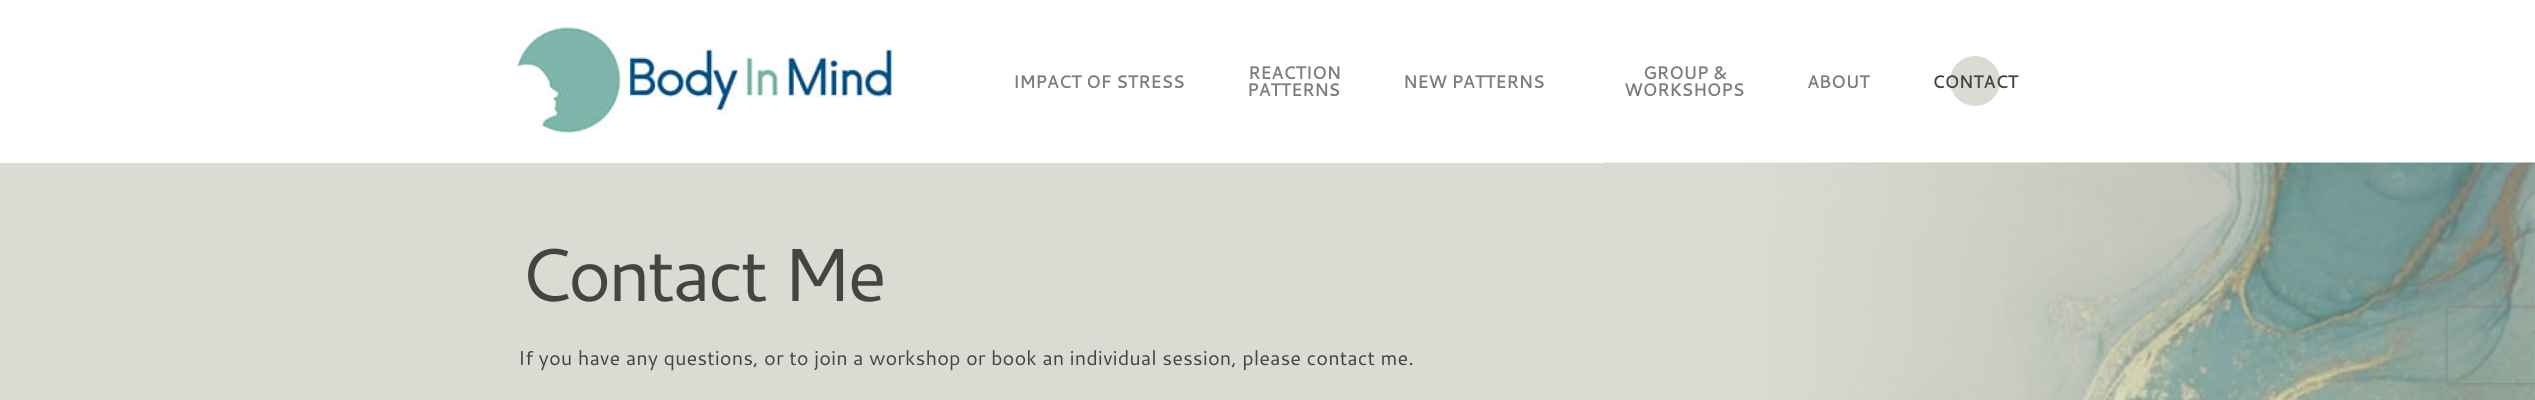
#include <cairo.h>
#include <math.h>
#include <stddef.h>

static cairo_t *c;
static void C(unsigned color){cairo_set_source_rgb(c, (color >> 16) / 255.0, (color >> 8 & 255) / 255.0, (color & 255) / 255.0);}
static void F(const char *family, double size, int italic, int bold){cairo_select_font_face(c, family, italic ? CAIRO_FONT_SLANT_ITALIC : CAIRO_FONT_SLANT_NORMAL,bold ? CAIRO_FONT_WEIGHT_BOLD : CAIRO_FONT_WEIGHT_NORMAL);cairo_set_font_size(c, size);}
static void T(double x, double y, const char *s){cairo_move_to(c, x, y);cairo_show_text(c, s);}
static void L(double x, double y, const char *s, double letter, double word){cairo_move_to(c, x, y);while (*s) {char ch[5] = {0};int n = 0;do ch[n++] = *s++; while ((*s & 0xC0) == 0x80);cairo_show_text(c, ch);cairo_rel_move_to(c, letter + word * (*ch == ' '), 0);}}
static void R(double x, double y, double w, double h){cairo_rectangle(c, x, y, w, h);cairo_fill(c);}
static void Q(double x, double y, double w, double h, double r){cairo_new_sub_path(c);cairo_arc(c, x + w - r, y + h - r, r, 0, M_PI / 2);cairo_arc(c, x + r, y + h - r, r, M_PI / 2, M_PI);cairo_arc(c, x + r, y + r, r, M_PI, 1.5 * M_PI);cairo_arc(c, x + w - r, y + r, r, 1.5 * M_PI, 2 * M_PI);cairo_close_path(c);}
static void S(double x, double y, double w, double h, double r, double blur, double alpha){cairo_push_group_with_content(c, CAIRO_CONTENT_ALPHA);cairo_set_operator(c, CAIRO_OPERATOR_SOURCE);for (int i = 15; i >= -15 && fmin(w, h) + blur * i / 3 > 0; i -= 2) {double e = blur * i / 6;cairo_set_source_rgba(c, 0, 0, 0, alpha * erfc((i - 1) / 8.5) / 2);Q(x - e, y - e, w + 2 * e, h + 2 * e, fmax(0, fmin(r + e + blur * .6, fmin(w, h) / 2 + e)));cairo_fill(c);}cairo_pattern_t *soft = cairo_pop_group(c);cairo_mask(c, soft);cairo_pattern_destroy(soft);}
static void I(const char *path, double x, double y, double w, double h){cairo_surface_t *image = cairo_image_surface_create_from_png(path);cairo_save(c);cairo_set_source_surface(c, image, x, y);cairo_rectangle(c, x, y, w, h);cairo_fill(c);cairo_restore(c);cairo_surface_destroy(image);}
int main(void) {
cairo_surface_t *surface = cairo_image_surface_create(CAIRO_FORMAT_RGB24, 2535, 400);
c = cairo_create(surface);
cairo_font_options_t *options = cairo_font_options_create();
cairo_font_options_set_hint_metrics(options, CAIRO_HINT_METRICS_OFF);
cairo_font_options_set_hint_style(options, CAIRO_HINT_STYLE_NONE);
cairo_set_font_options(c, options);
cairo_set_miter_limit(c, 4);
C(0xffffff);
cairo_paint(c);
I("1.png",517,27,376,106);
F("Cantarell",17.5,0,1);
C(0x7d7d7d);
T(1013,88,"IMPACT OF STRESS");
T(1248,79,"REACTION");
T(1247,96,"PATTERNS");
T(1403,88,"NEW PATTERNS");
T(1643,79,"GROUP &");
T(1624,96,"WORKSHOPS");
T(1807,88,"ABOUT");
C(0xd9dcd2);
cairo_new_path(c);
cairo_arc(c,1975,81,25,0,2 * M_PI);
cairo_fill(c);
C(0x444444);
T(1932,88,"CONTACT");
C(0xd9dcd2);
R(0,163,1604,237);
I("2.png",1603,162,932,238);
F("Cantarell",75,0,0);
C(0x444444);
L(518,301,"Contact Me",-3.75,0);
F("Cantarell",20,0,0);
T(518,365,"If you have any questions, or to join a workshop or book an individual session, please contact me.");
cairo_save(c);
cairo_set_fill_rule(c,CAIRO_FILL_RULE_EVEN_ODD);
cairo_new_path(c);
cairo_move_to(c,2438,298);
cairo_line_to(c,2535,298);
cairo_line_to(c,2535,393);
cairo_line_to(c,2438,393);
cairo_close_path(c);
cairo_move_to(c,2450.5,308);
cairo_line_to(c,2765.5,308);
cairo_curve_to(c,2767,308,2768,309,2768,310.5);
cairo_line_to(c,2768,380.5);
cairo_curve_to(c,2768,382,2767,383,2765.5,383);
cairo_line_to(c,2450.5,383);
cairo_curve_to(c,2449,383,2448,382,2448,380.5);
cairo_line_to(c,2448,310.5);
cairo_curve_to(c,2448,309,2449,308,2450.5,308);
cairo_close_path(c);
cairo_clip(c);
C(0x808080);
S(2448,308,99,75,2.5,3,1);
cairo_restore(c);
cairo_surface_write_to_png(surface, "o.png");
cairo_font_options_destroy(options);
cairo_destroy(c);
cairo_surface_destroy(surface);
return 0;
}
